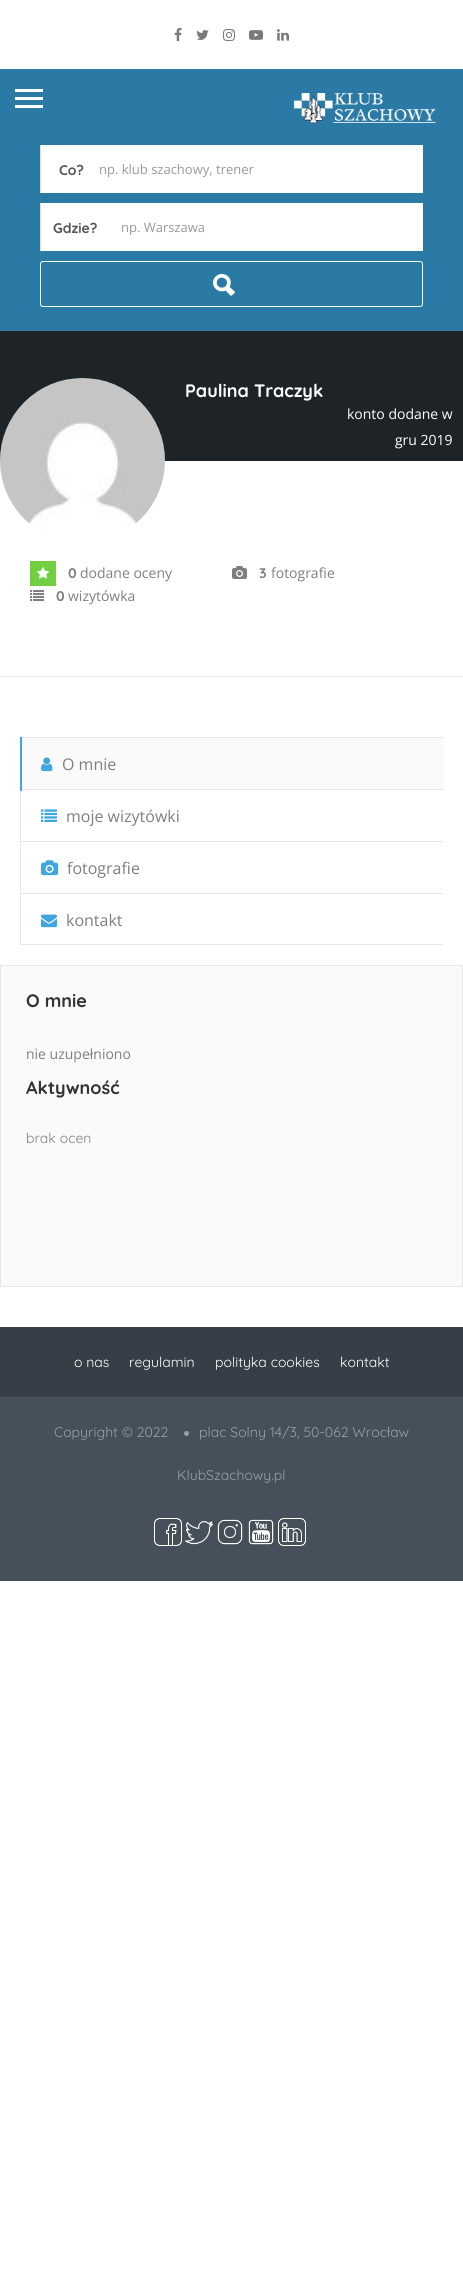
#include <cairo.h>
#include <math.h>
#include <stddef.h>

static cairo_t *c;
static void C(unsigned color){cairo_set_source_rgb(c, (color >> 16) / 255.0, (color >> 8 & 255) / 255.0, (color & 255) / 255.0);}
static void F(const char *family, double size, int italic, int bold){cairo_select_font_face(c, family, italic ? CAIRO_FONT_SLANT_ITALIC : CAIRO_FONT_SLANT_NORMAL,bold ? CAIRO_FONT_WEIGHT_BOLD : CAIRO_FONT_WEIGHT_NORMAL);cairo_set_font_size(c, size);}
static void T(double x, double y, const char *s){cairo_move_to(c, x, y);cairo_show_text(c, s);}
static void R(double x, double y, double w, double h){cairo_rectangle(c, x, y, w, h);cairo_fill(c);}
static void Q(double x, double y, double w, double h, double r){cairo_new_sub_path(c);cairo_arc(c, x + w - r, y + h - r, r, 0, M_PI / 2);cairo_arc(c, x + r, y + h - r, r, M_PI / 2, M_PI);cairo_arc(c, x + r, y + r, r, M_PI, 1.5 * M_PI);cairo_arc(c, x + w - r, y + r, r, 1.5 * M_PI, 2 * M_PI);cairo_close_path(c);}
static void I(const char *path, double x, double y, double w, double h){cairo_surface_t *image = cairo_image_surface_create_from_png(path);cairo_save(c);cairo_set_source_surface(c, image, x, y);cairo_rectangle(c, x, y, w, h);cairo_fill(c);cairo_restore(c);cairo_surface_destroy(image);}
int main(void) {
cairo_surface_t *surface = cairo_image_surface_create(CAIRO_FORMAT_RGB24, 463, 2271);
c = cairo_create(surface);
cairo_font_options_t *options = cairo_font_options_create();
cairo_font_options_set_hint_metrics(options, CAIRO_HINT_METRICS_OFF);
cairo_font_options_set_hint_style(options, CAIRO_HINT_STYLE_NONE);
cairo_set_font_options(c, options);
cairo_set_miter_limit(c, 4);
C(0xffffff);
cairo_paint(c);
I("1.png",174,28,8,13);
I("2.png",196,30,13,10);
I("3.png",223,29,12,12);
I("4.png",249,30,14,10);
I("5.png",277,29,12,12);
C(0x2b7aa6);
R(0,69,463,262);
C(0xffffff);
R(15,89,28,3);
R(15,97,28,3);
R(15,105,28,3);
I("6.png",293,93,143,30);
R(41,145,382,48);
C(0xdedede);
R(40,145,1,48);
F("Quicksand",14,0,1);
C(0x555555);
T(59,175,"Co?");
F("Open Sans",13,0,0);
C(0x999999);
T(99,174,"np. klub szachowy, trener");
C(0xffffff);
R(41,203,382,48);
C(0xdedede);
R(40,203,1,48);
F("Quicksand",14,0,1);
C(0x555555);
T(53,233,"Gdzie?");
F("Open Sans",13,0,0);
C(0x999999);
T(121,232,"np. Warszawa");
Q(40.5,261.5,382,45,2.5);
C(0xffffff);
cairo_set_line_width(c,1);
cairo_stroke(c);
I("7.png",213,274,23,22);
C(0x1d2327);
R(0,331,463,130);
I("8.png",0,378,165,151);
F("Quicksand",18,0,1);
C(0xffffff);
T(185,397,"Paulina Traczyk");
F("Open Sans",14,0,0);
T(347,419,"konto dodane w");
T(395,445,"gru 2019");
C(0xe7e7e7);
R(0,676,463,1);
C(0x73cf42);
R(30,561,26,25);
I("9.png",37,567,12,12);
F("Quicksand",14,0,1);
C(0x7f7f7f);
T(68,578,"0");
F("Open Sans",14,0,0);
T(80,578,"dodane oceny");
I("10.png",232,566,15,13);
F("Quicksand",14,0,1);
T(259,578,"3");
F("Open Sans",14,0,0);
T(271,578,"fotografie");
I("11.png",30,590,14,11);
F("Quicksand",14,0,1);
T(56,601,"0");
F("Open Sans",14,0,0);
T(68,601,"wizytówka");
C(0xfafafa);
R(22,738,421,51);
C(0xe7e7e7);
R(20,737,423,1);
R(20,789,423,1);
R(20,789,1,52);
C(0x41a6df);
R(20,737,2,54);
I("12.png",41,757,12,15);
F("Open Sans",16,0,0);
C(0x7f7f7f);
T(62,770,"O mnie");
C(0xfafafa);
R(443,737,1,52);
I("13.png",41,809,16,13);
C(0x7f7f7f);
T(66,822,"moje wizytówki");
C(0xe7e7e7);
R(20,841,423,1);
R(20,841,1,52);
I("14.png",41,860,18,16);
C(0x7f7f7f);
T(67,874,"fotografie");
C(0xe7e7e7);
R(20,893,423,1);
R(20,944,423,1);
R(20,893,1,52);
I("15.png",41,914,16,14);
C(0x7f7f7f);
T(66,926,"kontakt");
C(0xfafafa);
cairo_rectangle(c,.5,965.5,462,321);
cairo_fill_preserve(c);
C(0xe7e7e7);
cairo_stroke(c);
F("Quicksand",18,0,1);
C(0x333333);
T(26,1007,"O mnie");
F("Open Sans",14,0,0);
C(0x7f7f7f);
T(26,1059,"nie uzupełniono");
F("Quicksand",18,0,1);
C(0x333333);
T(26,1094,"Aktywność");
F("Quicksand",14,0,0);
C(0x7f7f7f);
T(26,1143,"brak ocen");
C(0x363f48);
R(0,1327,463,70);
C(0xffffff);
T(74,1367,"o nas");
T(129,1367,"regulamin");
T(215,1367,"polityka cookies");
T(340,1367,"kontakt");
C(0x45505b);
R(0,1397,463,184);
C(0x96a0a9);
T(54,1437,"Copyright © 2022");
cairo_new_path(c);
cairo_arc(c,186.5,1433.5,2.5,0,2 * M_PI);
cairo_fill(c);
T(199,1437,"plac Solny 14/3, 50-062 Wrocław");
T(177,1480,"KlubSzachowy.pl");
I("16.png",154,1518,28,28);
I("17.png",185,1521,28,24);
I("18.png",217,1519,26,26);
I("19.png",248,1519,26,26);
I("20.png",278,1518,28,28);
cairo_surface_write_to_png(surface, "o.png");
cairo_font_options_destroy(options);
cairo_destroy(c);
cairo_surface_destroy(surface);
return 0;
}
